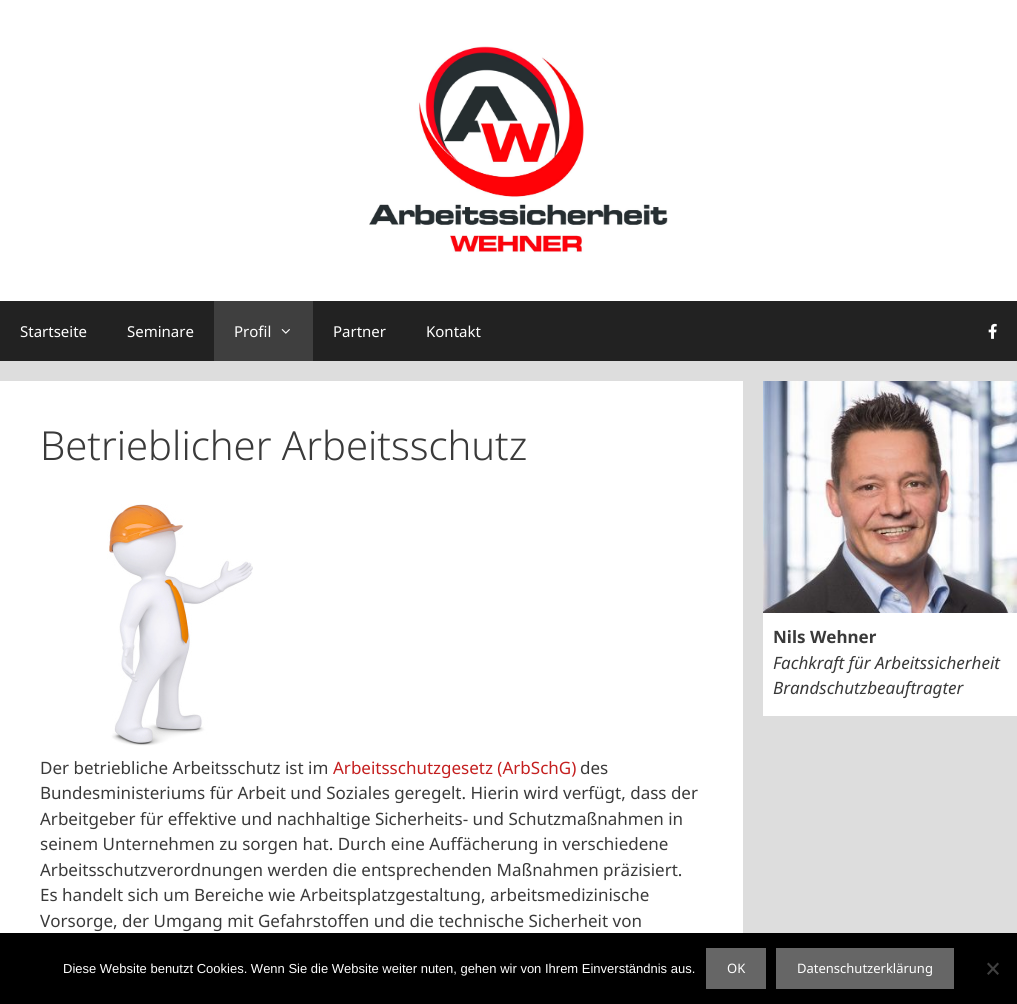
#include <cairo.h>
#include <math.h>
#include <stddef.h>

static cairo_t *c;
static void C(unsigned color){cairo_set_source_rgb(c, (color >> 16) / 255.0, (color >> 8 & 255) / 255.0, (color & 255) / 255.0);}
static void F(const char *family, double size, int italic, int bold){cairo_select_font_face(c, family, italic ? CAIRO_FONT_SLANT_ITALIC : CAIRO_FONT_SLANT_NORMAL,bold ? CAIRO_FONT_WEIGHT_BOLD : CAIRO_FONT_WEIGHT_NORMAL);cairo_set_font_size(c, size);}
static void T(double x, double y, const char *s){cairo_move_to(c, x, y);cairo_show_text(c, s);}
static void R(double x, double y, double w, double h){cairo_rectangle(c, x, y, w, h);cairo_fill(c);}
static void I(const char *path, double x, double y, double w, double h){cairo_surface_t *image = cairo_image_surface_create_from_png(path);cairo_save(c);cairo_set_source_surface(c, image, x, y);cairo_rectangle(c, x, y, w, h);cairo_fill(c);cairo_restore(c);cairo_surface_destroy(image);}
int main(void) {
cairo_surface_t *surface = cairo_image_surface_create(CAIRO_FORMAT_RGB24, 1017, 1004);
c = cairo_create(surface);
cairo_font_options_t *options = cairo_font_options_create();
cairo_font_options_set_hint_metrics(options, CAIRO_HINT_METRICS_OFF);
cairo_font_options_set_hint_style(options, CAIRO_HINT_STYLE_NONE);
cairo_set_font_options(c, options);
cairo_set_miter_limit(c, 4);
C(0xdddddd);
cairo_paint(c);
C(0xffffff);
R(0,0,1017,301);
I("1.png",369,46,299,207);
C(0x222222);
R(0,301,1017,60);
F("Noto Sans",15,0,0);
C(0xffffff);
T(20,337,"Startseite");
T(127,337,"Seminare");
C(0x3f3f3f);
R(214,301,99,60);
C(0xffffff);
T(234,337,"Profil");
I("2.png",281,329,9,5);
T(333,337,"Partner");
T(426,337,"Kontakt");
I("3.png",988,323,9,16);
R(0,381,743,552);
F("Noto Sans Light",40,0,0);
C(0x3a3a3a);
T(40,460,"Betrieblicher Arbeitsschutz");
I("4.png",107,504,146,242);
F("Noto Sans",17,0,0);
T(40,774,"Der betriebliche Arbeitsschutz ist im");
C(0xc41f1f);
T(333,774,"Arbeitsschutzgesetz (ArbSchG)");
C(0x3a3a3a);
T(580,774,"des");
T(40,799,"Bundesministeriums für Arbeit und Soziales geregelt. Hierin wird verfügt, dass der");
T(40,825,"Arbeitgeber für effektive und nachhaltige Sicherheits- und Schutzmaßnahmen in");
T(40,850,"seinem Unternehmen zu sorgen hat. Durch eine Auffächerung in verschiedene");
T(40,876,"Arbeitsschutzverordnungen werden die entsprechenden Maßnahmen präzisiert.");
T(40,901,"Es handelt sich um Bereiche wie Arbeitsplatzgestaltung, arbeitsmedizinische");
T(40,927,"Vorsorge, der Umgang mit Gefahrstoffen und die technische Sicherheit von");
C(0xffffff);
R(763,613,254,103);
I("5.png",763,381,254,232);
F("Noto Sans",17,0,1);
C(0x3a3a3a);
T(773,643,"Nils Wehner");
F("Noto Sans",17,1,0);
T(773,669,"Fachkraft für Arbeitssicherheit");
T(773,694,"Brandschutzbeauftragter");
C(0x000000);
R(0,933,1017,71);
F("Liberation Sans",13,0,0);
C(0xffffff);
T(63,973,"Diese Website benutzt Cookies. Wenn Sie die Website weiter nuten, gehen wir von Ihrem Einverständnis aus.");
C(0x666666);
R(706,948,60,41);
F("Noto Sans",13,0,0);
C(0xffffff);
T(727,973,"OK");
C(0x666666);
R(776,948,178,41);
C(0xffffff);
T(797,973,"Datenschutzerklärung");
C(0x404040);
cairo_new_path(c);
cairo_move_to(c,997.5,962.5);
cairo_line_to(c,999,964);
cairo_line_to(c,988.5,975);
cairo_line_to(c,987,973.5);
cairo_close_path(c);
cairo_fill(c);
cairo_new_path(c);
cairo_move_to(c,987,964);
cairo_line_to(c,988.5,962.5);
cairo_line_to(c,999,973.5);
cairo_line_to(c,997.5,975);
cairo_close_path(c);
cairo_fill(c);
cairo_surface_write_to_png(surface, "o.png");
cairo_font_options_destroy(options);
cairo_destroy(c);
cairo_surface_destroy(surface);
return 0;
}
